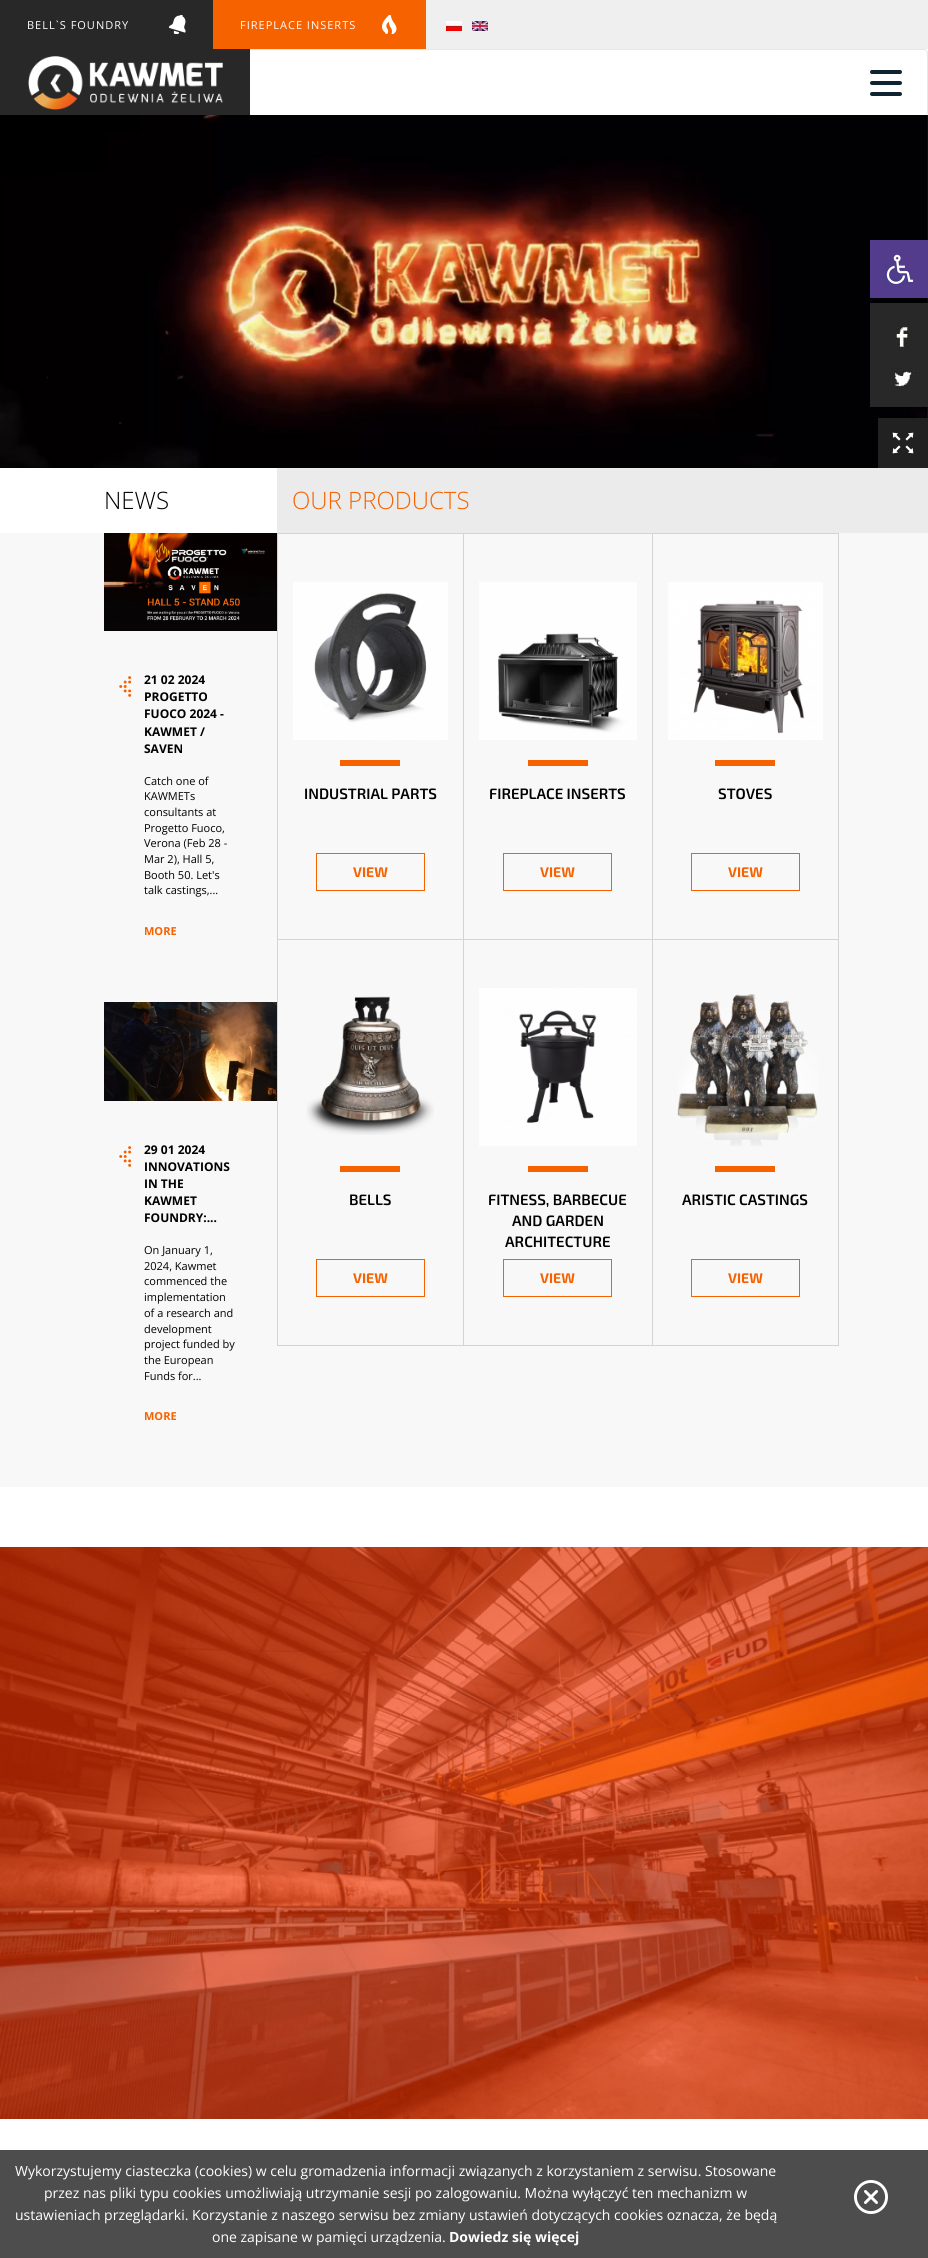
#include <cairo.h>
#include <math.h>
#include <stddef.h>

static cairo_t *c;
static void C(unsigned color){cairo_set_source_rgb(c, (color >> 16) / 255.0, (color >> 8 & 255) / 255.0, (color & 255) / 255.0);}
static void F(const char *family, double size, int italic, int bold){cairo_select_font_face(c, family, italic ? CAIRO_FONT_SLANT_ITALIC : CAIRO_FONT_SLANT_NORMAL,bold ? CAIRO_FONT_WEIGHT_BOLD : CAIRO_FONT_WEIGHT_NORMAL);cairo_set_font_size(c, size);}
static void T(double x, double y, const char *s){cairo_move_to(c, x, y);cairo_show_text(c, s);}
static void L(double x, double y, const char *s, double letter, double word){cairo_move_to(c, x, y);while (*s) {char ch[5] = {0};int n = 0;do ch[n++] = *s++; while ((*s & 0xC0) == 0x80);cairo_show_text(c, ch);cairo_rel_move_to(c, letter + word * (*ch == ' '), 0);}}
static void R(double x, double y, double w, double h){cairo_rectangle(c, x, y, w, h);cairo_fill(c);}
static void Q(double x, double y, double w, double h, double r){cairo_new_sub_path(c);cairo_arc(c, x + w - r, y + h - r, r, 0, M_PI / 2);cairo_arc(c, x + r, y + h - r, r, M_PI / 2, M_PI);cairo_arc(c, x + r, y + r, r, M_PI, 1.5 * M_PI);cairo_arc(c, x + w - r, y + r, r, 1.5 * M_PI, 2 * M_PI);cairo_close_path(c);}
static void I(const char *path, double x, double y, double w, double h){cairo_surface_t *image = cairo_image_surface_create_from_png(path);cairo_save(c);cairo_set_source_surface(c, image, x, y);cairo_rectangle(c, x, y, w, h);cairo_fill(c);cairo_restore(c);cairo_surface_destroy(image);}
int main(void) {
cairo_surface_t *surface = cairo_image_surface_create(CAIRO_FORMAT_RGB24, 928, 2258);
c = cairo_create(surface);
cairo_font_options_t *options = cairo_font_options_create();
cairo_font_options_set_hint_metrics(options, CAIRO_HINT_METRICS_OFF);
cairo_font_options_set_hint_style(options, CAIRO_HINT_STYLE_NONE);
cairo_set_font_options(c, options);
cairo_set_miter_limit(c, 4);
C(0xffffff);
cairo_paint(c);
C(0xefefef);
R(426,0,502,49);
C(0x292828);
R(0,0,213,49);
F("Open Sans",11,0,0);
C(0xffffff);
L(27,29,"BELL`S FOUNDRY",1,0);
I("1.png",168,15,18,19);
C(0xf76200);
R(213,0,213,49);
C(0xffffff);
L(240,29,"FIREPLACE INSERTS",1,0);
I("2.png",382,15,15,19);
I("3.png",446,21,16,10);
I("4.png",472,21,16,10);
cairo_new_path(c);
cairo_move_to(c,1.5,114.5);
cairo_curve_to(c,1,114,.5,113,.5,112);
cairo_line_to(c,.5,53);
cairo_curve_to(c,.5,52,1,51,1.5,50.5);
cairo_curve_to(c,2,50,3,49.5,4,49.5);
cairo_line_to(c,924,49.5);
cairo_curve_to(c,925,49.5,926,50,926.5,50.5);
cairo_curve_to(c,927,51,927.5,52,927.5,53);
cairo_line_to(c,927.5,112);
cairo_curve_to(c,927.5,113,927,114,926.5,114.5);
C(0xe7e7e7);
cairo_set_line_width(c,1);
cairo_stroke(c);
C(0x292828);
R(0,49,250,66);
I("5.png",28,56,195,54);
C(0x0e2431);
Q(870,70,32,4,2);
cairo_fill(c);
Q(870,81,32,4,2);
cairo_fill(c);
Q(870,92,32,4,2);
cairo_fill(c);
I("6.png",0,115,928,353);
I("7.png",119,115,654,322);
C(0x212121);
R(878,418,50,50);
I("8.png",892,432,22,22);
I("9.png",870,303,58,104);
C(0xf8f8f8);
R(0,533,928,954);
C(0xebebeb);
R(277,468,651,65);
F("Open Sans Light",24,0,0);
C(0x000000);
T(104,509,"NEWS");
I("10.png",104,533,173,98);
I("11.png",119,676,13,21);
F("Open Sans",12,0,1);
T(144,684,"21 02 2024");
T(144,701,"PROGETTO");
T(144,718,"FUOCO 2024 -");
T(144,736,"KAWMET /");
T(144,753,"SAVEN");
F("Open Sans",11,0,0);
T(144,785,"Catch one of");
T(144,800,"KAWMETs");
T(144,816,"consultants at");
T(144,832,"Progetto Fuoco,");
T(144,847,"Verona (Feb 28 -");
T(144,863,"Mar 2), Hall 5,");
T(144,879,"Booth 50. Let's");
T(144,894,"talk castings,...");
F("Open Sans",11,0,1);
C(0xf76200);
T(144,935,"MORE");
I("12.png",104,1002,173,99);
I("11.png",119,1146,13,21);
F("Open Sans",12,0,1);
C(0x000000);
T(144,1154,"29 01 2024");
T(144,1171,"INNOVATIONS");
T(144,1188,"IN THE");
T(144,1205,"KAWMET");
T(144,1222,"FOUNDRY:...");
F("Open Sans",11,0,0);
T(144,1254,"On January 1,");
T(144,1270,"2024, Kawmet");
T(144,1285,"commenced the");
T(144,1301,"implementation");
T(144,1317,"of a research and");
T(144,1333,"development");
T(144,1348,"project funded by");
T(144,1364,"the European");
T(144,1380,"Funds for...");
F("Open Sans",11,0,1);
C(0xf76200);
T(144,1420,"MORE");
F("Open Sans Light",24,0,0);
T(292,509,"OUR PRODUCTS");
C(0xd4d4d4);
R(277,1345,562,1);
R(277,533,562,1);
R(463,533,1,406);
R(277,533,1,406);
I("13.png",293,582,155,158);
C(0xf76200);
R(340,760,60,6);
F("Exo 2 SemiBold",15,0,0);
C(0x000000);
T(304,799,"INDUSTRIAL PARTS");
cairo_rectangle(c,316.5,853.5,108,37);
C(0xf76200);
cairo_stroke(c);
F("Exo 2",14,0,1);
T(353,877,"VIEW");
I("14.png",479,582,158,158);
R(528,760,60,6);
F("Exo 2 SemiBold",15,0,0);
C(0x000000);
T(489,799,"FIREPLACE INSERTS");
cairo_rectangle(c,503.5,853.5,108,37);
C(0xf76200);
cairo_stroke(c);
F("Exo 2",14,0,1);
T(540,877,"VIEW");
C(0xd4d4d4);
R(838,533,1,406);
R(652,533,1,406);
I("15.png",668,582,155,158);
C(0xf76200);
R(715,760,60,6);
F("Exo 2 SemiBold",15,0,0);
C(0x000000);
T(718,799,"STOVES");
cairo_rectangle(c,691.5,853.5,108,37);
C(0xf76200);
cairo_stroke(c);
F("Exo 2",14,0,1);
T(728,877,"VIEW");
C(0xd4d4d4);
R(277,939,562,1);
R(463,939,1,406);
R(277,939,1,406);
I("16.png",306,996,128,139);
C(0xf76200);
R(340,1166,60,6);
F("Exo 2 SemiBold",15,0,0);
C(0x000000);
T(349,1205,"BELLS");
cairo_rectangle(c,316.5,1259.5,108,37);
C(0xf76200);
cairo_stroke(c);
F("Exo 2",14,0,1);
T(353,1283,"VIEW");
I("17.png",479,988,158,158);
R(528,1166,60,6);
F("Exo 2 SemiBold",15,0,0);
C(0x000000);
T(488,1205,"FITNESS, BARBECUE");
T(512,1226,"AND GARDEN");
T(505,1247,"ARCHITECTURE");
cairo_rectangle(c,503.5,1259.5,108,37);
C(0xf76200);
cairo_stroke(c);
F("Exo 2",14,0,1);
T(540,1283,"VIEW");
C(0xd4d4d4);
R(838,939,1,406);
R(652,939,1,406);
I("18.png",677,994,141,152);
C(0xf76200);
R(715,1166,60,6);
F("Exo 2 SemiBold",15,0,0);
C(0x000000);
T(682,1205,"ARISTIC CASTINGS");
cairo_rectangle(c,691.5,1259.5,108,37);
C(0xf76200);
cairo_stroke(c);
F("Exo 2",14,0,1);
T(728,1283,"VIEW");
I("19.png",0,1547,928,572);
C(0x533c8c);
R(870,240,58,58);
I("20.png",884,254,30,31);
C(0x4d4d4d);
R(0,2150,928,108);
F("Open Sans",14,0,0);
C(0xffffff);
T(15,2176,"Wykorzystujemy ciasteczka (cookies) w celu gromadzenia informacji związanych z korzystaniem z serwisu. Stosowane");
T(44,2198,"przez nas pliki typu cookies umożliwiają utrzymanie sesji po zalogowaniu. Można wyłączyć ten mechanizm w");
T(15,2220,"ustawieniach przeglądarki. Korzystanie z naszego serwisu bez zmiany ustawień dotyczących cookies oznacza, że będą");
T(212,2242,"one zapisane w pamięci urządzenia.");
F("Open Sans",14,0,1);
T(449,2242,"Dowiedz się więcej");
I("21.png",854,2180,34,34);
cairo_surface_write_to_png(surface, "o.png");
cairo_font_options_destroy(options);
cairo_destroy(c);
cairo_surface_destroy(surface);
return 0;
}
